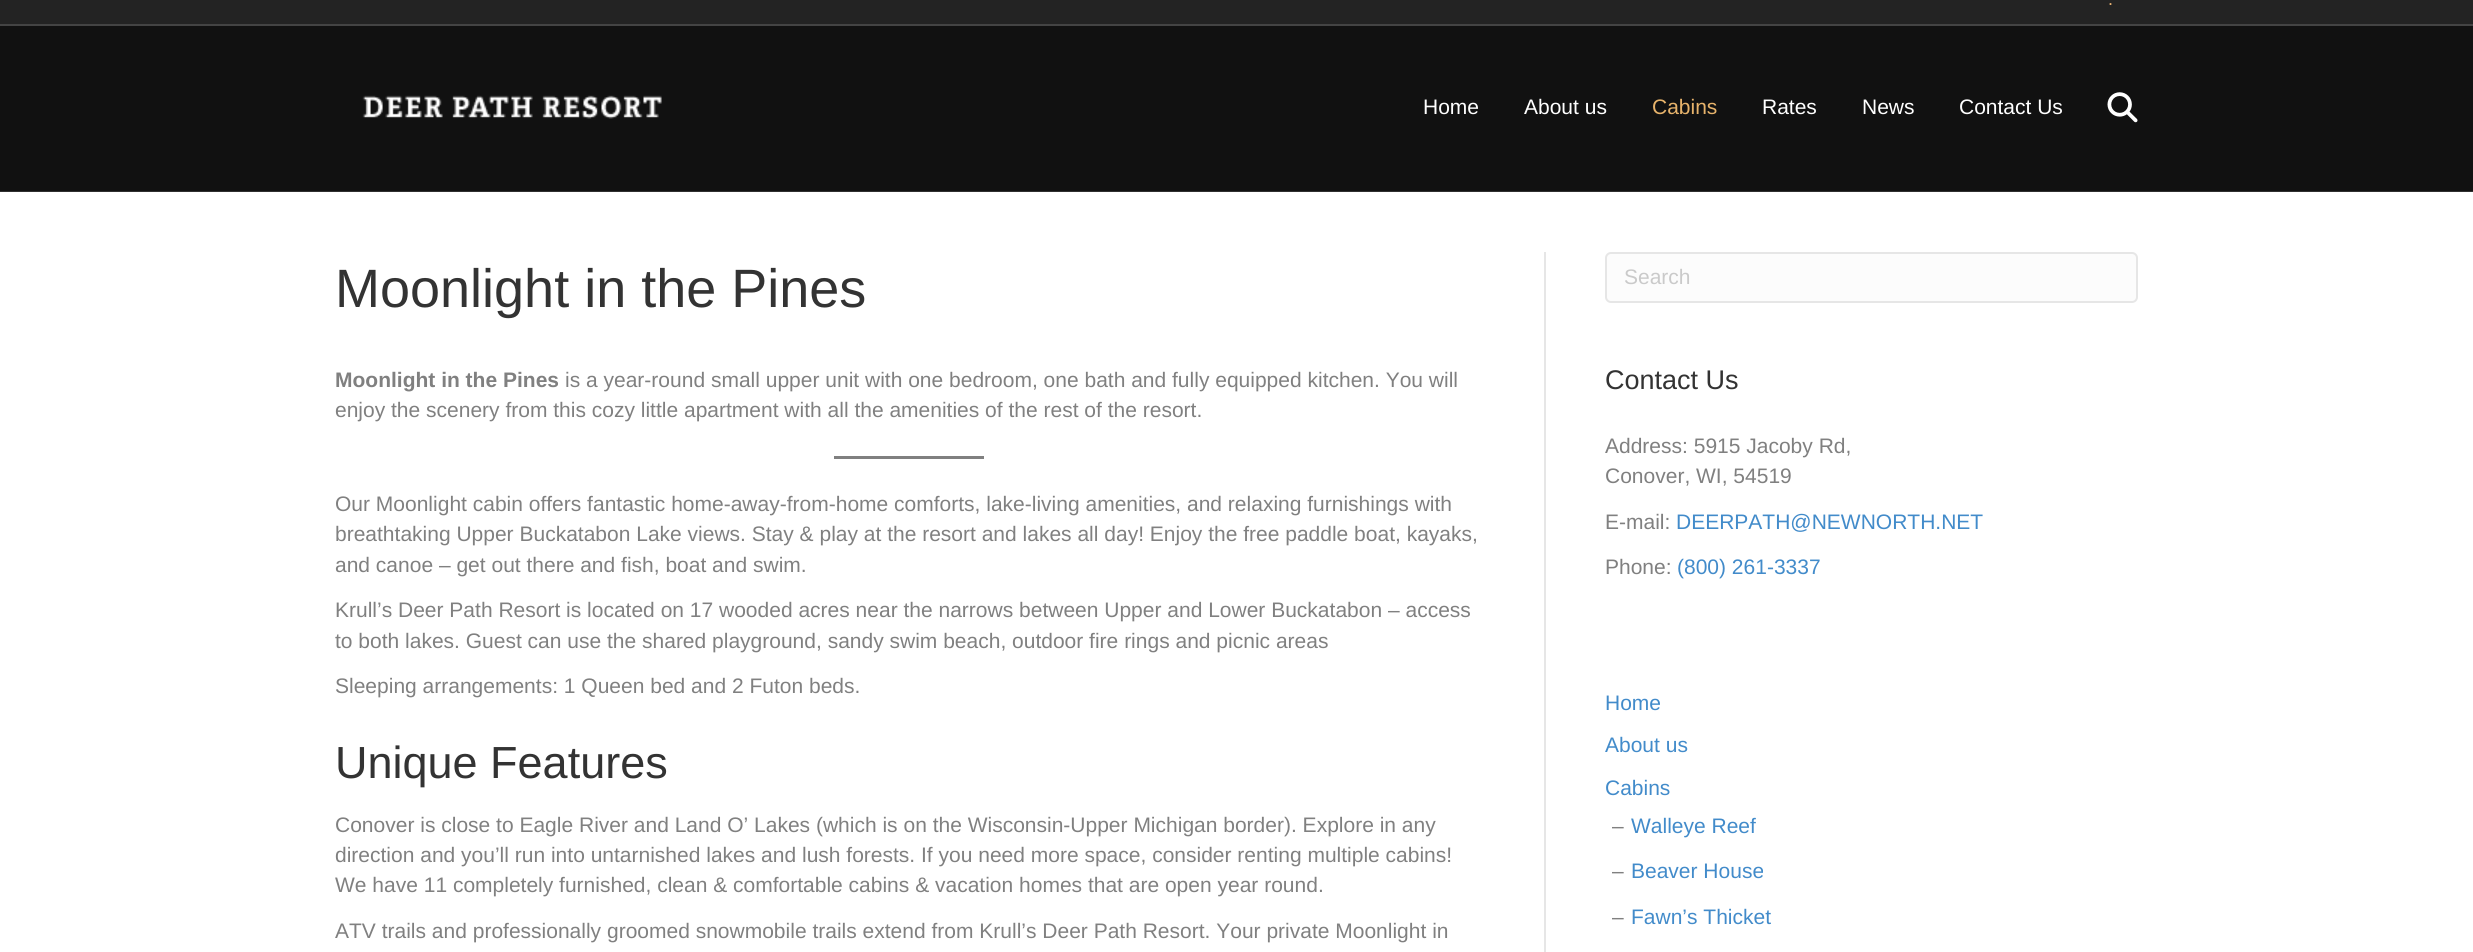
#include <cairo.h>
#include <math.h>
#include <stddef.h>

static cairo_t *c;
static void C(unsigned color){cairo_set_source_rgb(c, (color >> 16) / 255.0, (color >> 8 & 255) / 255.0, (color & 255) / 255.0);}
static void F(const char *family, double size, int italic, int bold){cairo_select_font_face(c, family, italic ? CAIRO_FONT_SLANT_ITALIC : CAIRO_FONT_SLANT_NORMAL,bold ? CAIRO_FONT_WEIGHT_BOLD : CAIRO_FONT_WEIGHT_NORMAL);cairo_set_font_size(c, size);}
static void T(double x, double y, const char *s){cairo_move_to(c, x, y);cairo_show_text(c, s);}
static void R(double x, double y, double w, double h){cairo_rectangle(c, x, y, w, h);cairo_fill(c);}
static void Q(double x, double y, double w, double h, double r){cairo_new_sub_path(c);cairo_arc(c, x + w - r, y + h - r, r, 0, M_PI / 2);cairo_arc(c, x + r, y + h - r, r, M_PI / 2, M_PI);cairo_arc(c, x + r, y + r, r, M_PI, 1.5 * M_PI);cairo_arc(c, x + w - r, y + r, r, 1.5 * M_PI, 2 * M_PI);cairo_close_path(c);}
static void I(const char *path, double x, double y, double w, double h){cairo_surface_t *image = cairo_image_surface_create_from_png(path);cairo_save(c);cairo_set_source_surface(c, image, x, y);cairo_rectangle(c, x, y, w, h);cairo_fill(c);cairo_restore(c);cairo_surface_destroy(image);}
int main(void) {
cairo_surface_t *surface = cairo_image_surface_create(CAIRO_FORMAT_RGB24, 2473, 952);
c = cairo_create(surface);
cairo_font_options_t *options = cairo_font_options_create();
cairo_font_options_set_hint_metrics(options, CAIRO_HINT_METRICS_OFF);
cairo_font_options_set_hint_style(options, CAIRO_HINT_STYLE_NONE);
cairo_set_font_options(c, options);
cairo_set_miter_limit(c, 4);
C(0x232323);
cairo_paint(c);
C(0x444444);
R(0,24,2473,2);
F("Liberation Sans",18,0,0);
C(0xeab372);
T(2108,5,".");
C(0x111111);
R(0,26,2473,165);
C(0x303030);
R(0,191,2473,1);
I("1.png",362,95,300,24);
F("Liberation Sans",21,0,0);
C(0xffffff);
T(1423,114,"Home");
T(1524,114,"About us");
C(0xe7b36b);
T(1652,114,"Cabins");
C(0xffffff);
T(1762,114,"Rates");
T(1862,114,"News");
T(1959,114,"Contact Us");
I("2.png",2107,92,31,31);
R(0,192,2473,760);
C(0xe6e6e6);
R(1544,252,2,700);
F("Liberation Sans",54,0,0);
C(0x333333);
T(335,307,"Moonlight in the Pines");
F("Liberation Sans",21,0,1);
C(0x808080);
T(335,387,"Moonlight in the Pines");
F("Liberation Sans",21,0,0);
T(565,387,"is a year-round small upper unit with one bedroom, one bath and fully equipped kitchen. You will");
T(335,417,"enjoy the scenery from this cozy little apartment with all the amenities of the rest of the resort.");
R(834,456,150,3);
T(335,511,"Our Moonlight cabin offers fantastic home-away-from-home comforts, lake-living amenities, and relaxing furnishings with");
T(335,541,"breathtaking Upper Buckatabon Lake views. Stay & play at the resort and lakes all day! Enjoy the free paddle boat, kayaks,");
T(335,572,"and canoe – get out there and fish, boat and swim.");
T(335,617,"Krull’s Deer Path Resort is located on 17 wooded acres near the narrows between Upper and Lower Buckatabon – access");
T(335,648,"to both lakes. Guest can use the shared playground, sandy swim beach, outdoor fire rings and picnic areas");
T(335,693,"Sleeping arrangements: 1 Queen bed and 2 Futon beds.");
F("Liberation Sans",45,0,0);
C(0x333333);
T(335,778,"Unique Features");
F("Liberation Sans",21,0,0);
C(0x808080);
T(335,832,"Conover is close to Eagle River and Land O’ Lakes (which is on the Wisconsin-Upper Michigan border). Explore in any");
T(335,862,"direction and you’ll run into untarnished lakes and lush forests. If you need more space, consider renting multiple cabins!");
T(335,892,"We have 11 completely furnished, clean & comfortable cabins & vacation homes that are open year round.");
T(335,938,"ATV trails and professionally groomed snowmobile trails extend from Krull’s Deer Path Resort. Your private Moonlight in");
C(0xfcfcfc);
Q(1606,253,531,49,5);
cairo_fill_preserve(c);
C(0xe6e6e6);
cairo_stroke(c);
C(0xcacaca);
T(1624,284,"Search");
F("Liberation Sans",27,0,0);
C(0x333333);
T(1605,389,"Contact Us");
F("Liberation Sans",21,0,0);
C(0x808080);
T(1605,453,"Address: 5915 Jacoby Rd,");
T(1605,483,"Conover, WI, 54519");
T(1605,529,"E-mail:");
C(0x428bca);
T(1676,529,"DEERPATH@NEWNORTH.NET");
C(0x808080);
T(1605,574,"Phone:");
C(0x428bca);
T(1677,574,"(800) 261-3337");
T(1605,710,"Home");
T(1605,752,"About us");
T(1605,795,"Cabins");
C(0x808080);
T(1612,833,"–");
C(0x428bca);
T(1631,833,"Walleye Reef");
C(0x808080);
T(1612,878,"–");
C(0x428bca);
T(1631,878,"Beaver House");
C(0x808080);
T(1612,924,"–");
C(0x428bca);
T(1631,924,"Fawn’s Thicket");
cairo_surface_write_to_png(surface, "o.png");
cairo_font_options_destroy(options);
cairo_destroy(c);
cairo_surface_destroy(surface);
return 0;
}
